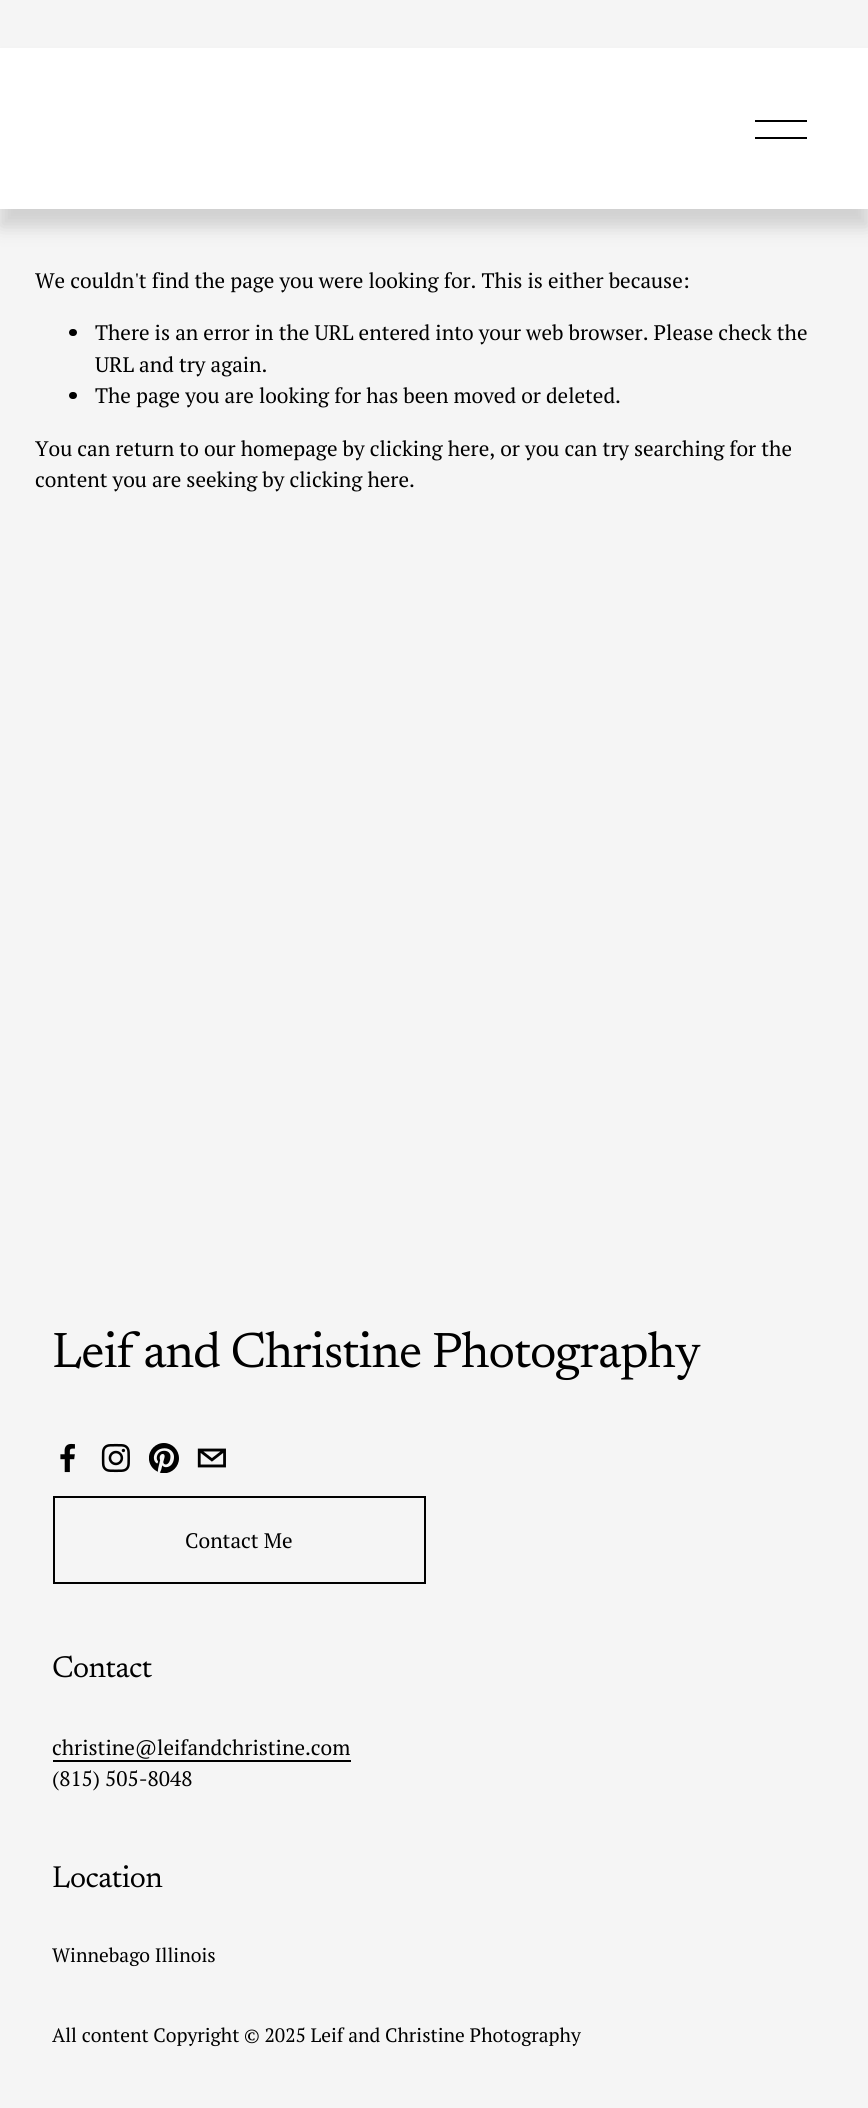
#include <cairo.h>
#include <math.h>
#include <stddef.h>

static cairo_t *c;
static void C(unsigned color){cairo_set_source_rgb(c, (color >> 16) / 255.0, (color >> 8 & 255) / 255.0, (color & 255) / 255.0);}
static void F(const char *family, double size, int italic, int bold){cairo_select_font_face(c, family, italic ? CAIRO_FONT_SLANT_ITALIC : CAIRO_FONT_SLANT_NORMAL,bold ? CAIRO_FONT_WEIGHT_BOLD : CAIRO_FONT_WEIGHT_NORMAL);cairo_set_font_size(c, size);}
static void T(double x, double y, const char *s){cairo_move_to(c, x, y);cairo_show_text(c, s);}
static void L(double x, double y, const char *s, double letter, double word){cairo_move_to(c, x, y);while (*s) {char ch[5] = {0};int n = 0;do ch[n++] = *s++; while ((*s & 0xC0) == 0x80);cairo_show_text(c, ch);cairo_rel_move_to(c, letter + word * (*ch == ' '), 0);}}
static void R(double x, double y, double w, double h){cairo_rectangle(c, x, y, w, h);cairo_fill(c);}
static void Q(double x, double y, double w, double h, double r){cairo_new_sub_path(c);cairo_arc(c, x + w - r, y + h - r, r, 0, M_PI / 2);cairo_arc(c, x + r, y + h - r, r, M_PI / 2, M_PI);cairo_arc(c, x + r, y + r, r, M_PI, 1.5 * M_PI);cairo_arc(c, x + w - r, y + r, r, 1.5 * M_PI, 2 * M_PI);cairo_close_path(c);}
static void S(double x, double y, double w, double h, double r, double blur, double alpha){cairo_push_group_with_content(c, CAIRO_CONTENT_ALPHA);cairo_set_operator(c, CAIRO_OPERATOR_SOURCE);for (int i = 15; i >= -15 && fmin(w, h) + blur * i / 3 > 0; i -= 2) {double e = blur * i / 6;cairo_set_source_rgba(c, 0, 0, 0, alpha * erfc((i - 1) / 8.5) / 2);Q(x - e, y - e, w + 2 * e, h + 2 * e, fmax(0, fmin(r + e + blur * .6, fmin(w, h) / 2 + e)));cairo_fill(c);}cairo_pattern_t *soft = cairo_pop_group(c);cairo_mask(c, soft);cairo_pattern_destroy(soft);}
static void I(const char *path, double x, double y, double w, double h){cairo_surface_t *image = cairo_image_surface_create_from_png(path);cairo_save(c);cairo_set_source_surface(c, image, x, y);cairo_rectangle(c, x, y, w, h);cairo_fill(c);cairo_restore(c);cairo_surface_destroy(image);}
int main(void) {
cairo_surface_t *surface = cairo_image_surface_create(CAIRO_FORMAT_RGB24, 868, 2108);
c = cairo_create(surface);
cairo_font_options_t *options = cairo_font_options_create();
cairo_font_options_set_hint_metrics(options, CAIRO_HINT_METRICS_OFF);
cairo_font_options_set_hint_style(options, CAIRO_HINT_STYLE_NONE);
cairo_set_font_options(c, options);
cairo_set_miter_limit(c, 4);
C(0xf5f5f5);
cairo_paint(c);
C(0xd0d0d0);
S(0,66,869,161,0,9,1);
C(0xffffff);
R(0,48,868,161);
C(0x000000);
R(755,120,52,2);
R(755,137,52,2);
F("PT Serif",21,0,0);
T(35,288,"We couldn't find the page you were looking for. This is either because:");
Q(69,329,8,7,3.5);
cairo_fill(c);
T(95,340,"There is an error in the URL entered into your web browser. Please check the");
T(95,372,"URL and try again.");
Q(69,392,8,7,3.5);
cairo_fill(c);
T(95,403,"The page you are looking for has been moved or deleted.");
T(35,456,"You can return to our homepage by clicking here, or you can try searching for the");
T(35,487,"content you are seeking by clicking here.");
F("Newsreader",50.2,0,0);
L(52,1367,"Leif and Christine Photography",-1,0);
I("1.png",60,1443,15,30);
I("2.png",101,1443,29,30);
I("3.png",149,1443,30,30);
I("4.png",197,1448,29,20);
cairo_rectangle(c,54,1497,371,86);
cairo_stroke(c);
F("PT Serif",21,0,0);
T(185,1548,"Contact Me");
F("Newsreader",30.5,0,0);
L(52,1677,"Contact",-.5,0);
F("PT Serif",21,0,0);
T(52,1755,"christine@leifandchristine.com");
R(53,1760,298,2);
T(52,1786,"(815) 505-8048");
F("Newsreader",30.5,0,0);
L(52,1887,"Location",-.5,0);
F("PT Serif",19.4,0,0);
T(52,1962,"Winnebago Illinois");
T(52,2042,"All content Copyright © 2025 Leif and Christine Photography");
cairo_surface_write_to_png(surface, "o.png");
cairo_font_options_destroy(options);
cairo_destroy(c);
cairo_surface_destroy(surface);
return 0;
}
